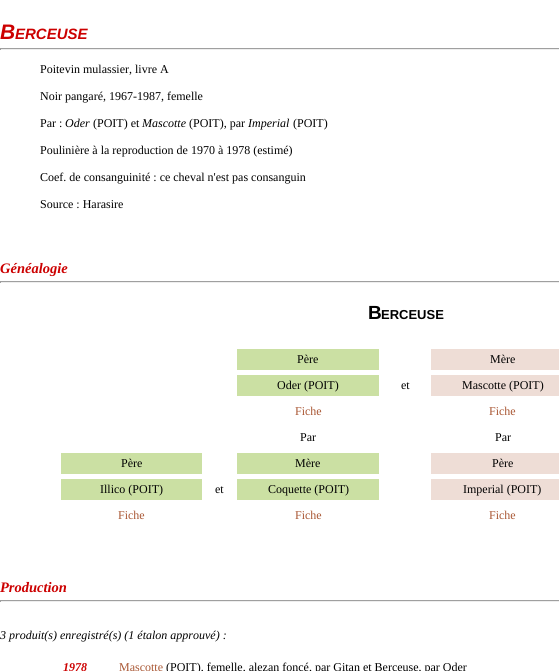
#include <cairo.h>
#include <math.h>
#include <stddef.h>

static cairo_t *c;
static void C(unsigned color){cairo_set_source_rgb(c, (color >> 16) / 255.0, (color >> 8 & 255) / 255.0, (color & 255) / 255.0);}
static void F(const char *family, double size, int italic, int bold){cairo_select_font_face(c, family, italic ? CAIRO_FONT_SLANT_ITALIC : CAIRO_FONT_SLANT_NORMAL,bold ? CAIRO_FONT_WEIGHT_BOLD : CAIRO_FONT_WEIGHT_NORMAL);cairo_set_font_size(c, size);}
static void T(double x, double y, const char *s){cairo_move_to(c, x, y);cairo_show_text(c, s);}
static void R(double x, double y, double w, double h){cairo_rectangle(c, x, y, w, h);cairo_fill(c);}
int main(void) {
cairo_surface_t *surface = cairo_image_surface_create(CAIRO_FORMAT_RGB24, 559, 671);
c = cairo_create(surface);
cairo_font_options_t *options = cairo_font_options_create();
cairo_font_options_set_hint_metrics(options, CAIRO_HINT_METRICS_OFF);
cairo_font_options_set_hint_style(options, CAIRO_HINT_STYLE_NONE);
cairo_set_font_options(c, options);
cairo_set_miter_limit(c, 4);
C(0xffffff);
cairo_paint(c);
F("Liberation Sans",21,1,1);
C(0xcc0000);
T(0,39,"B");
F("Liberation Sans",15,1,1);
T(15,39,"ERCEUSE");
C(0x9f9f9f);
R(0,48,559,1);
C(0xeeeeee);
R(0,49,559,1);
C(0x9f9f9f);
R(0,48,1,2);
F("Liberation Serif",12,0,0);
C(0x000000);
T(40,73,"Poitevin mulassier, livre A");
T(40,100,"Noir pangaré, 1967-1987, femelle");
T(40,127,"Par :");
F("Liberation Serif",12,1,0);
T(65,127,"Oder");
F("Liberation Serif",12,0,0);
T(93,127,"(POIT) et");
F("Liberation Serif",12,1,0);
T(142,127,"Mascotte");
F("Liberation Serif",12,0,0);
T(189,127,"(POIT), par");
F("Liberation Serif",12,1,0);
T(248,127,"Imperial");
F("Liberation Serif",12,0,0);
T(293,127,"(POIT)");
T(40,154,"Poulinière à la reproduction de 1970 à 1978 (estimé)");
T(40,181,"Coef. de consanguinité : ce cheval n'est pas consanguin");
T(40,208,"Source : Harasire");
F("Liberation Serif",14.5,1,1);
C(0xcc0000);
T(0,273,"Généalogie");
C(0x9f9f9f);
R(0,281,559,1);
C(0xeeeeee);
R(0,282,559,1);
C(0x9f9f9f);
R(0,281,1,2);
F("Liberation Sans",19,0,1);
C(0x000000);
T(368,319,"B");
F("Liberation Sans",13,0,1);
T(381,319,"ERCEUSE");
C(0xcbe0a3);
R(237,349,142,21);
F("Liberation Serif",12,0,0);
C(0x000000);
T(297,363,"Père");
C(0xeeddd6);
R(431,349,128,21);
C(0x000000);
T(490,363,"Mère");
C(0xcbe0a3);
R(237,375,142,21);
C(0x000000);
T(277,389,"Oder (POIT)");
T(401,389,"et");
C(0xeeddd6);
R(431,375,128,21);
C(0x000000);
T(462,389,"Mascotte (POIT)");
C(0xa95734);
T(295,415,"Fiche");
T(489,415,"Fiche");
C(0x000000);
T(300,441,"Par");
T(495,441,"Par");
C(0xcbe0a3);
R(61,453,141,21);
C(0x000000);
T(121,467,"Père");
C(0xcbe0a3);
R(237,453,142,21);
C(0x000000);
T(295,467,"Mère");
C(0xeeddd6);
R(431,453,128,21);
C(0x000000);
T(492,467,"Père");
C(0xcbe0a3);
R(61,479,141,21);
C(0x000000);
T(100,493,"Illico (POIT)");
T(215,493,"et");
C(0xcbe0a3);
R(237,479,142,21);
C(0x000000);
T(268,493,"Coquette (POIT)");
C(0xeeddd6);
R(431,479,128,21);
C(0x000000);
T(463,493,"Imperial (POIT)");
C(0xa95734);
T(118,519,"Fiche");
T(295,519,"Fiche");
T(489,519,"Fiche");
F("Liberation Serif",14.5,1,1);
C(0xcc0000);
T(0,592,"Production");
C(0x9f9f9f);
R(0,600,559,1);
C(0xeeeeee);
R(0,601,559,1);
C(0x9f9f9f);
R(0,600,1,2);
F("Liberation Serif",12,1,0);
C(0x000000);
T(0,639,"3 produit(s) enregistré(s) (1 étalon approuvé) :");
F("Liberation Serif",12,1,1);
C(0xcc0000);
T(63,671,"1978");
F("Liberation Serif",12,0,0);
C(0xa95734);
T(119,671,"Mascotte");
C(0x000000);
T(166,671,"(POIT), femelle, alezan foncé, par Gitan et Berceuse, par Oder");
cairo_surface_write_to_png(surface, "o.png");
cairo_font_options_destroy(options);
cairo_destroy(c);
cairo_surface_destroy(surface);
return 0;
}
